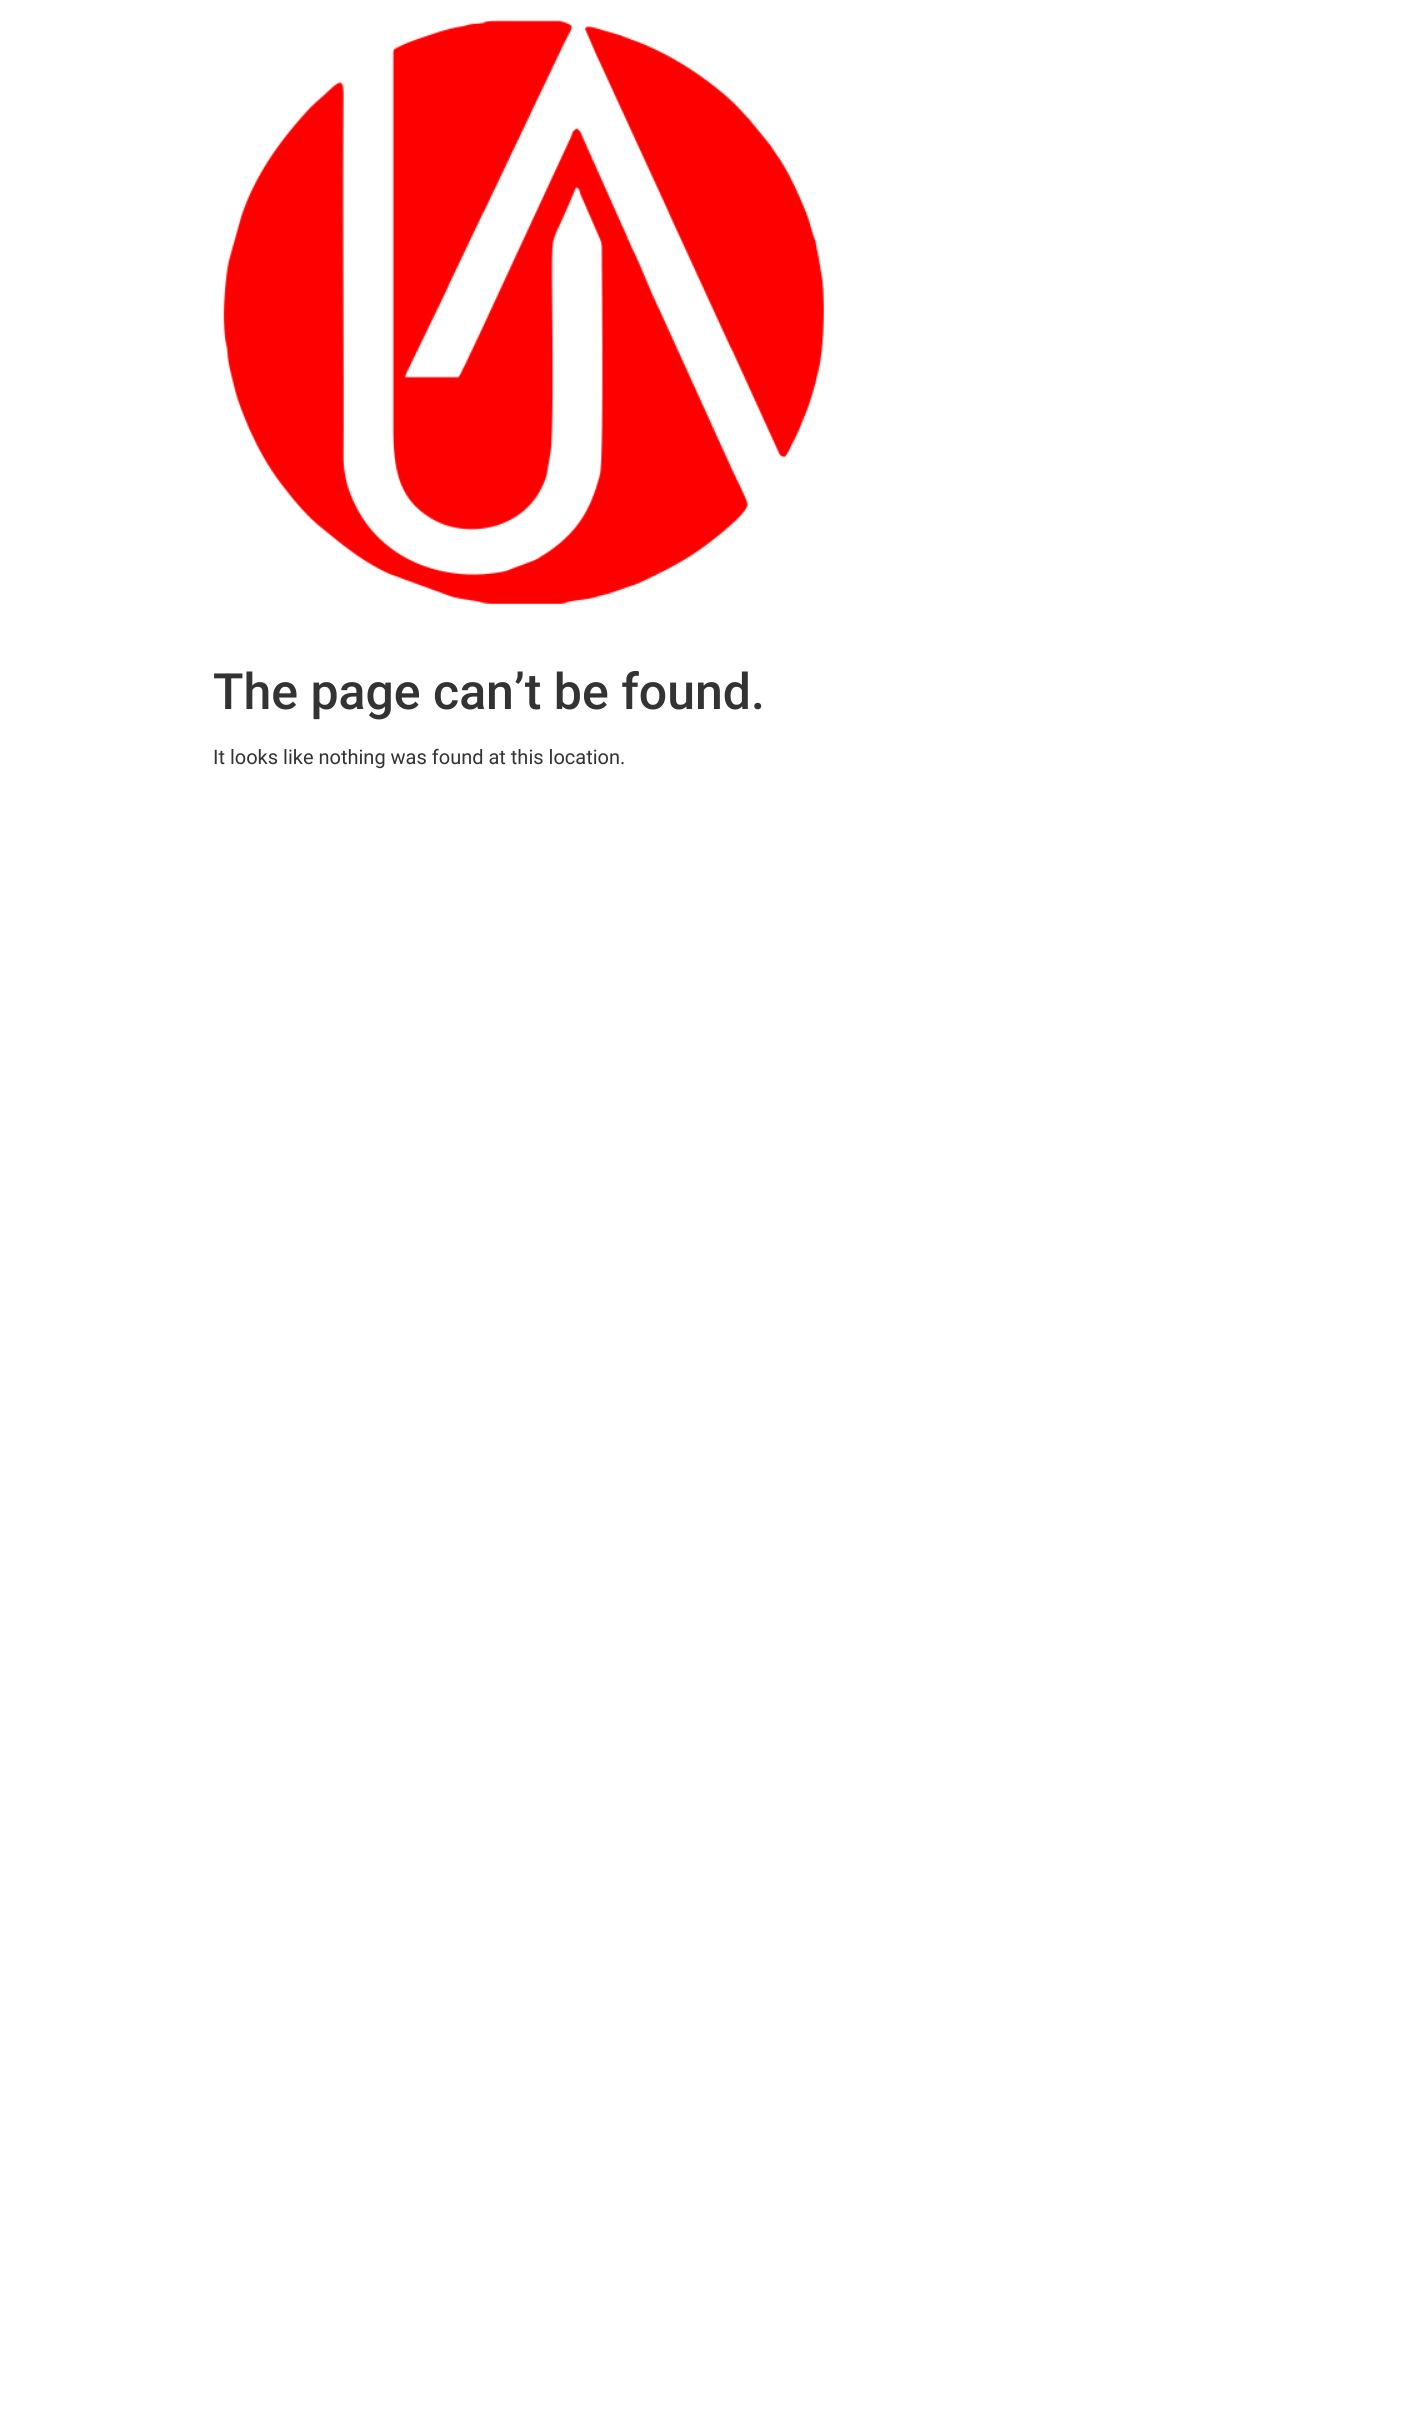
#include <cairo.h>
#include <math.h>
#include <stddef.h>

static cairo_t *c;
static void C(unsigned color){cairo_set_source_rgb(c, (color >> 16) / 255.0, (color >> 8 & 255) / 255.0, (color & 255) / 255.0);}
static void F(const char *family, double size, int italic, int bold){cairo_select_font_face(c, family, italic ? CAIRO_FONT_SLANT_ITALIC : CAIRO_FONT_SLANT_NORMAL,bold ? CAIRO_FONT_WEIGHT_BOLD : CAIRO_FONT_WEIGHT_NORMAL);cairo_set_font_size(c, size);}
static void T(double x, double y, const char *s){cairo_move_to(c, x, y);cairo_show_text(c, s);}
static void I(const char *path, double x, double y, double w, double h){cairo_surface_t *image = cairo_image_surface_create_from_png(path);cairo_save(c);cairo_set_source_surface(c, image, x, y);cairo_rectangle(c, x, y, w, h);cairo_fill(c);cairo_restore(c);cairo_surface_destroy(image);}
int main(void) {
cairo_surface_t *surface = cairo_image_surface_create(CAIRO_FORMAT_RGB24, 1425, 2429);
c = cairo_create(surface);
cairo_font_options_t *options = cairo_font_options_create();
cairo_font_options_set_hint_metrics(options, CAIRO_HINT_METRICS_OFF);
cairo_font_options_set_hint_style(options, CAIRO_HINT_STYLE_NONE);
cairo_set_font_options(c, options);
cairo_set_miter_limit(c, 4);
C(0xffffff);
cairo_paint(c);
I("1.png",223,20,601,585);
F("Roboto Medium",50,0,0);
C(0x333333);
T(213,709,"The page can’t be found.");
F("Roboto",20,0,0);
T(213,764,"It looks like nothing was found at this location.");
cairo_surface_write_to_png(surface, "o.png");
cairo_font_options_destroy(options);
cairo_destroy(c);
cairo_surface_destroy(surface);
return 0;
}
